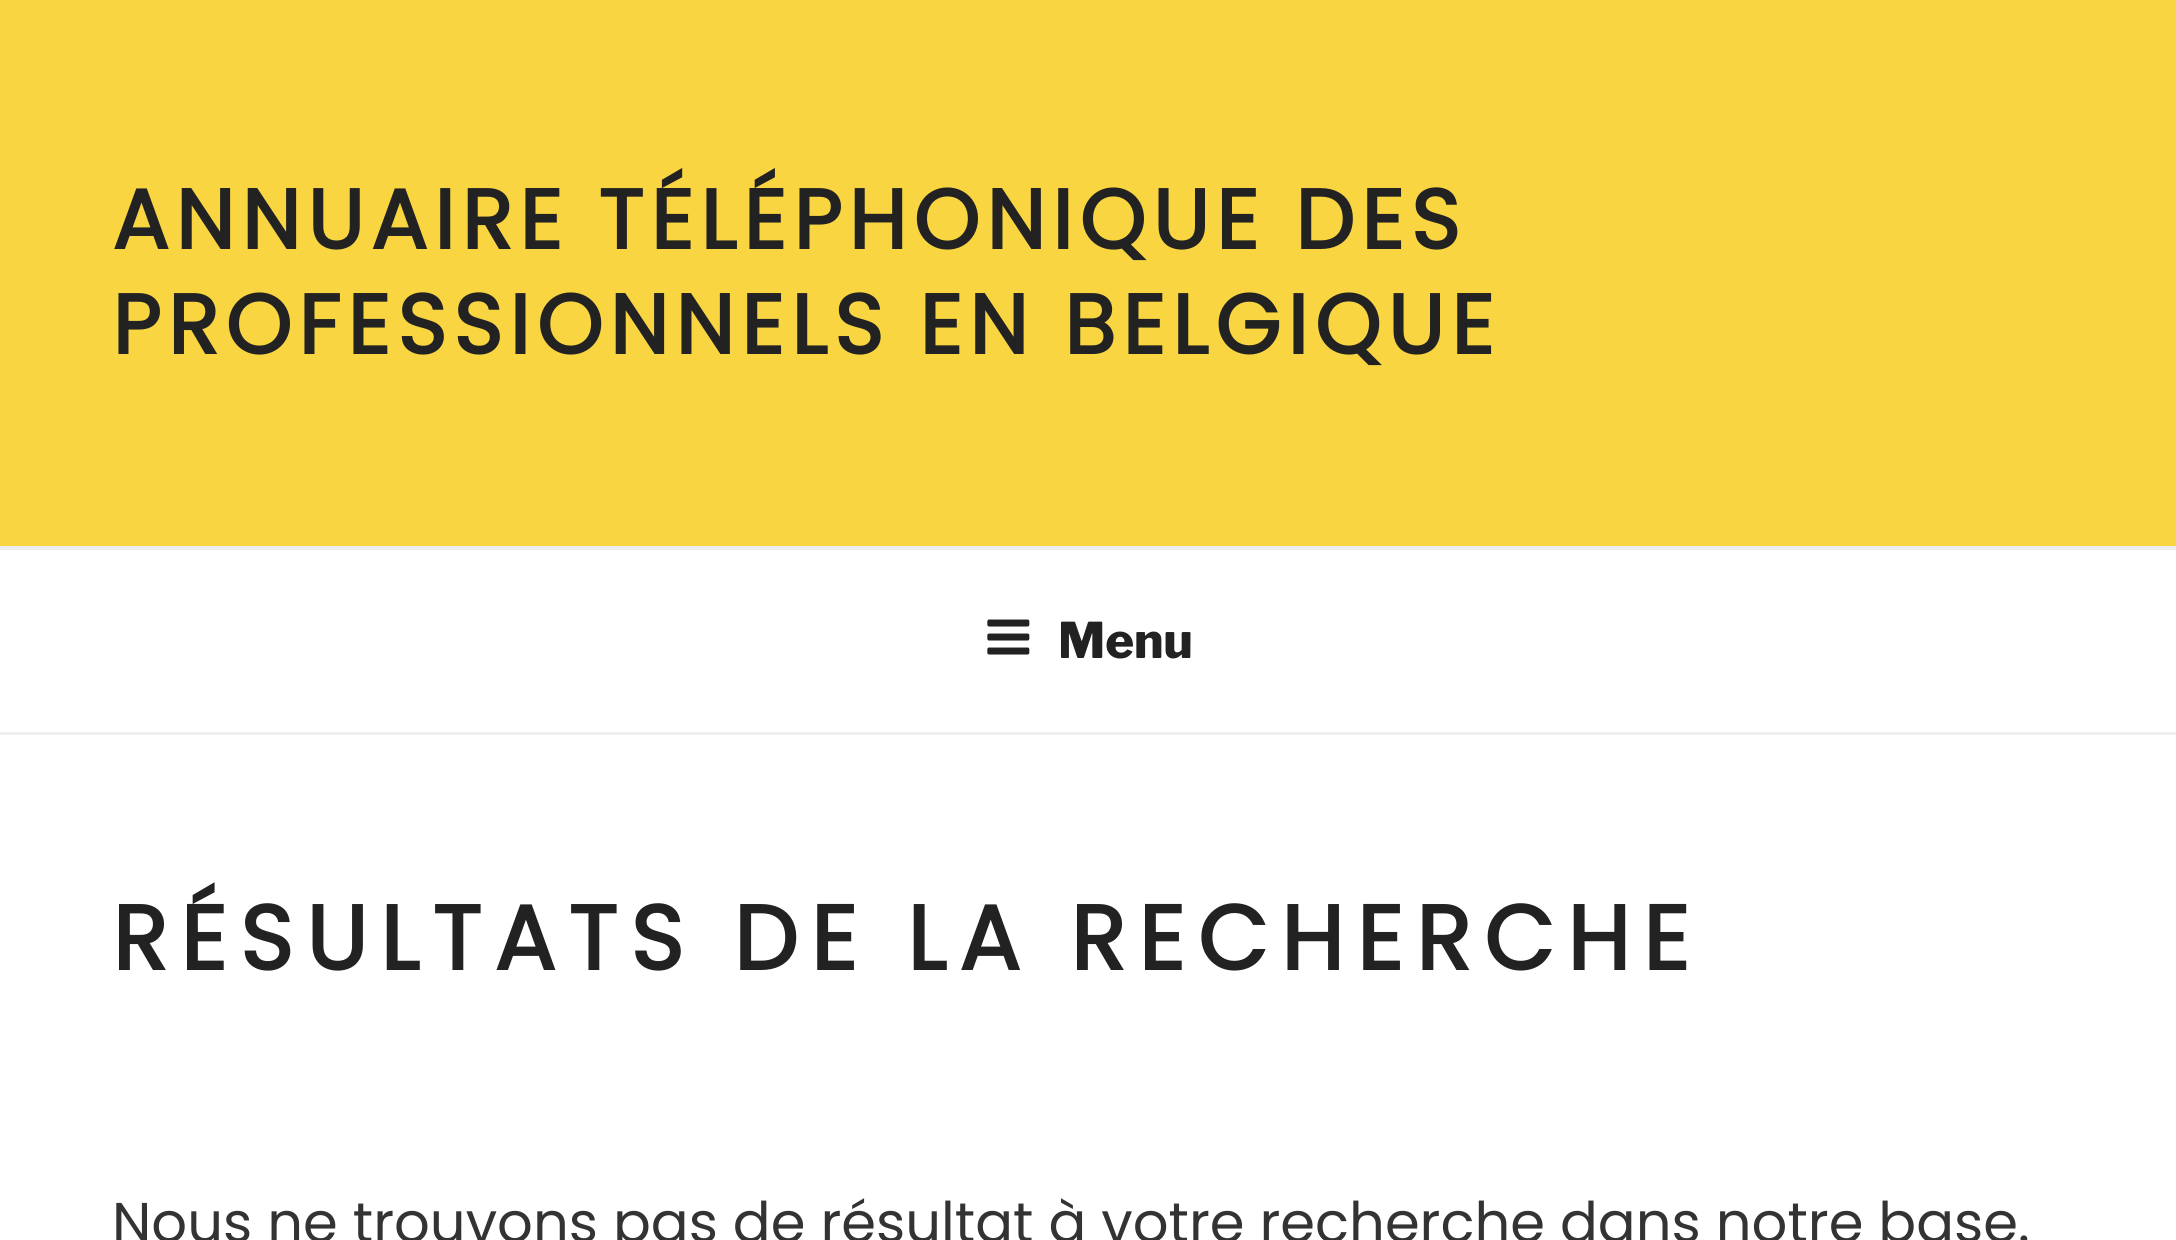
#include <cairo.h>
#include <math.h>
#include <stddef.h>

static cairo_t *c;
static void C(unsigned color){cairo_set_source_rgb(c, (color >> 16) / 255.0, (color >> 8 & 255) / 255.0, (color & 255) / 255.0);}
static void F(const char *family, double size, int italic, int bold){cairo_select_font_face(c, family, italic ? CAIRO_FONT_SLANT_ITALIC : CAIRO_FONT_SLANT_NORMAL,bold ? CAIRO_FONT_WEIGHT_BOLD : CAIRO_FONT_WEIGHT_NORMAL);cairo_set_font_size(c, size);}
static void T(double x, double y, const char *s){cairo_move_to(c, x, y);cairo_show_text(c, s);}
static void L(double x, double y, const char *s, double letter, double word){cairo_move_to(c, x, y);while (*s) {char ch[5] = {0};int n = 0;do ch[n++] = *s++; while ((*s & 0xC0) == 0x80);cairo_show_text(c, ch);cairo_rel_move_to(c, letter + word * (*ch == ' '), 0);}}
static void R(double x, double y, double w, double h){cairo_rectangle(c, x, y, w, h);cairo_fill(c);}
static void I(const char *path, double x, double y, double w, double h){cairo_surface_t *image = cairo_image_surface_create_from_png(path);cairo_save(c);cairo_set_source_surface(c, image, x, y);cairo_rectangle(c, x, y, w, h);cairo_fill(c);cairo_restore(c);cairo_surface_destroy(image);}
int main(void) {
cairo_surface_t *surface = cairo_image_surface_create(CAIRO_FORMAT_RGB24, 2176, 1240);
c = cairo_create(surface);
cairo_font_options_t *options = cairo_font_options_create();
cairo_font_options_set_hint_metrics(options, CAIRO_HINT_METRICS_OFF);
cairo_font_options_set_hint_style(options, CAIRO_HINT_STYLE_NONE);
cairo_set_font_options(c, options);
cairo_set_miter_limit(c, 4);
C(0xf9d541);
cairo_paint(c);
F("Poppins",84,0,1);
C(0x222222);
L(112,249,"ANNUAIRE TÉLÉPHONIQUE DES",6.75,0);
L(112,354,"PROFESSIONNELS EN BELGIQUE",6.75,0);
C(0xffffff);
R(0,550,2176,182);
C(0xeeeeee);
R(0,546,2176,4);
R(0,732,2176,3);
I("1.png",987,619,43,36);
F("Libre Franklin Thin",49,0,0);
C(0x222222);
T(1058,658,"Menu");
C(0xffffff);
R(0,735,2176,505);
F("Poppins",91,0,1);
C(0x222222);
L(112,970,"RÉSULTATS DE LA RECHERCHE",12.75,0);
F("Poppins",56,0,0);
C(0x333333);
T(112,1242,"Nous ne trouvons pas de résultat à votre recherche dans notre base.");
cairo_surface_write_to_png(surface, "o.png");
cairo_font_options_destroy(options);
cairo_destroy(c);
cairo_surface_destroy(surface);
return 0;
}
